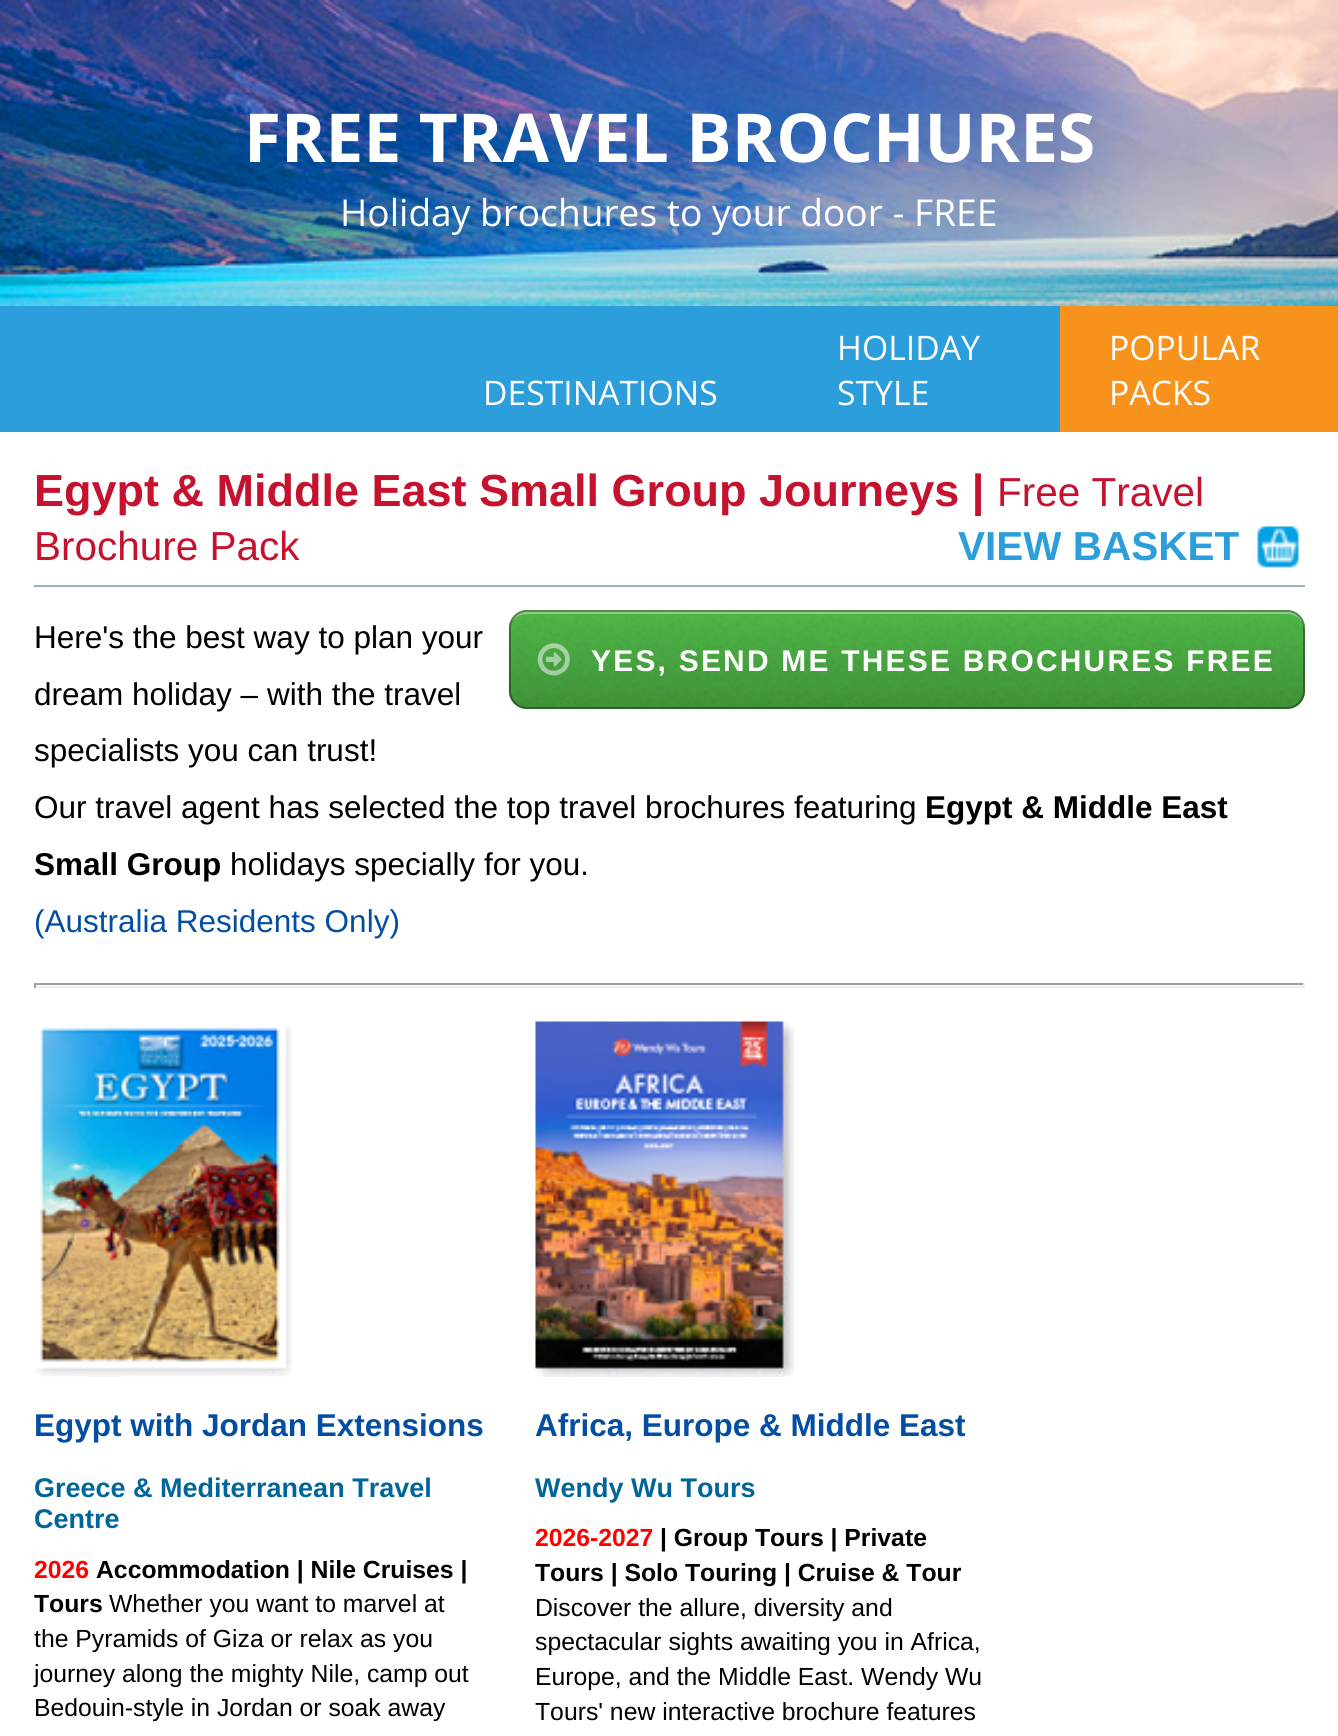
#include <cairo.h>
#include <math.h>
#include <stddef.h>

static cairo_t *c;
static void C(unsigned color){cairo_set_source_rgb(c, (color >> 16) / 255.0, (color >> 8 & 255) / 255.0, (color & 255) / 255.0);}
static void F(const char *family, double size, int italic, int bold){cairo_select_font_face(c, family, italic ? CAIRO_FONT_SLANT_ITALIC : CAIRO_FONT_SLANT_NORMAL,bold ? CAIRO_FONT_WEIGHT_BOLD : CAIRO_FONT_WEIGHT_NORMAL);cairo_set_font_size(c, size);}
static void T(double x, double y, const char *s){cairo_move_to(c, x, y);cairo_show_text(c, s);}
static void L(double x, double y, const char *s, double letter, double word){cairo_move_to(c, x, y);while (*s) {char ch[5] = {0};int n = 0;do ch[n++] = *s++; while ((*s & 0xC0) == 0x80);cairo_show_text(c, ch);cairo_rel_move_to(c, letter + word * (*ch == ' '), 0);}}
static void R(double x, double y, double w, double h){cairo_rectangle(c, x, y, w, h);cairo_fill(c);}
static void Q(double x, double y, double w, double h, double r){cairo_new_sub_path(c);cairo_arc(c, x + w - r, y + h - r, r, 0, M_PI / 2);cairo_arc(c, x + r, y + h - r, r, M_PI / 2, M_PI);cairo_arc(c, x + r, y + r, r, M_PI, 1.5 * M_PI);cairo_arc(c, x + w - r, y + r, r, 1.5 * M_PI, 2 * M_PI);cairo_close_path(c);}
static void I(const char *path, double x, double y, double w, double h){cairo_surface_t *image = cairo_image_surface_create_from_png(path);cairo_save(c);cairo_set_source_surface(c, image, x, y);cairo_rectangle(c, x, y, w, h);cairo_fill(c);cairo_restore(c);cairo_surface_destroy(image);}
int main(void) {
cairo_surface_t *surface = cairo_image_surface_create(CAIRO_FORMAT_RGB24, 1338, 1736);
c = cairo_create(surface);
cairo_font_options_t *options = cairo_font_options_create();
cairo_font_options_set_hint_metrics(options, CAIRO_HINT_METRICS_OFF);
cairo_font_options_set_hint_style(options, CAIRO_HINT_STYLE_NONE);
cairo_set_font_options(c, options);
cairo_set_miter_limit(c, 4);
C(0xffffff);
cairo_paint(c);
I("1.png",0,0,1338,306);
F("Open Sans",67.5,0,1);
C(0xffffff);
T(244,162,"FREE TRAVEL BROCHURES");
F("Open Sans",37.1,0,0);
T(340,226,"Holiday brochures to your door - FREE");
C(0x2c9edc);
R(0,306,1060,126);
F("Open Sans",33.75,0,0);
C(0xffffff);
T(483,405,"DESTINATIONS");
T(837,360,"HOLIDAY");
T(837,405,"STYLE");
C(0xf7931d);
R(1060,306,278,126);
C(0xffffff);
T(1109,360,"POPULAR");
T(1109,405,"PACKS");
C(0x9ab2bc);
R(34,585,1271,2);
F("Liberation Sans",45,0,1);
C(0xc4122f);
T(34,506,"Egypt & Middle East Small Group Journeys |");
F("Liberation Sans",40.5,0,0);
T(997,506,"Free Travel");
T(34,560,"Brochure Pack");
F("Liberation Sans",40.5,0,1);
C(0x2c9edc);
T(958,560,"VIEW BASKET");
I("2.png",1257,526,42,42);
F("Liberation Sans",31.5,0,0);
C(0x000000);
T(34,648,"Here's the best way to plan your");
T(34,705,"dream holiday – with the travel");
T(34,761,"specialists you can trust!");
T(34,818,"Our travel agent has selected the top travel brochures featuring");
F("Liberation Sans",31.5,0,1);
T(925,818,"Egypt & Middle East");
T(34,875,"Small Group");
F("Liberation Sans",31.5,0,0);
T(230,875,"holidays specially for you.");
C(0x034ea2);
T(34,932,"(Australia Residents Only)");
C(0x50b848);
Q(509,610,796,99,18);
cairo_fill(c);
I("3.png",508,610,797,99);
cairo_set_source_rgba(c,1,1,1,0.35);
cairo_new_path(c);
cairo_move_to(c,526,614);
cairo_line_to(c,1287,614);
cairo_curve_to(c,1297,614,1305,622,1305,632);
cairo_line_to(c,1305,628);
cairo_curve_to(c,1305,618,1297,610,1287,610);
cairo_line_to(c,527,610);
cairo_curve_to(c,518,610,510,617,509,626);
cairo_curve_to(c,512,619,519,614,526,614);
cairo_close_path(c);
cairo_fill(c);
Q(510,611,794,97,17);
cairo_set_source_rgba(c,0,0,0,0.35);
cairo_stroke(c);
I("4.png",537,643,33,33);
F("Liberation Sans",29.9,0,1);
C(0xffffff);
L(591,671,"YES, SEND ME THESE BROCHURES FREE",2.25,0);
C(0x9f9f9f);
R(34,983,1271,2);
C(0xeeeeee);
R(1303,983,2,5);
R(34,986,1271,2);
C(0x9f9f9f);
R(34,983,2,5);
I("5.png",34,1022,259,355);
F("Liberation Sans",31.5,0,1);
C(0x034ea2);
T(34,1436,"Egypt with Jordan Extensions");
F("Liberation Sans",27,0,1);
C(0x006699);
T(34,1497,"Greece & Mediterranean Travel");
T(34,1528,"Centre");
F("Liberation Sans",24.75,0,1);
C(0xff0000);
T(34,1578,"2026");
C(0x000000);
T(96,1578,"Accommodation | Nile Cruises |");
T(34,1612,"Tours");
F("Liberation Sans",24.75,0,0);
T(109,1612,"Whether you want to marvel at");
T(34,1647,"the Pyramids of Giza or relax as you");
T(34,1682,"journey along the mighty Nile, camp out");
T(34,1716,"Bedouin-style in Jordan or soak away");
I("6.png",535,1021,260,356);
F("Liberation Sans",31.5,0,1);
C(0x034ea2);
T(535,1436,"Africa, Europe & Middle East");
F("Liberation Sans",27,0,1);
C(0x006699);
T(535,1497,"Wendy Wu Tours");
F("Liberation Sans",24.75,0,1);
C(0xff0000);
T(535,1546,"2026-2027");
C(0x000000);
T(660,1546,"| Group Tours | Private");
T(535,1581,"Tours | Solo Touring | Cruise & Tour");
F("Liberation Sans",24.75,0,0);
T(535,1616,"Discover the allure, diversity and");
T(535,1650,"spectacular sights awaiting you in Africa,");
T(535,1685,"Europe, and the Middle East. Wendy Wu");
T(535,1720,"Tours' new interactive brochure features");
cairo_surface_write_to_png(surface, "o.png");
cairo_font_options_destroy(options);
cairo_destroy(c);
cairo_surface_destroy(surface);
return 0;
}
